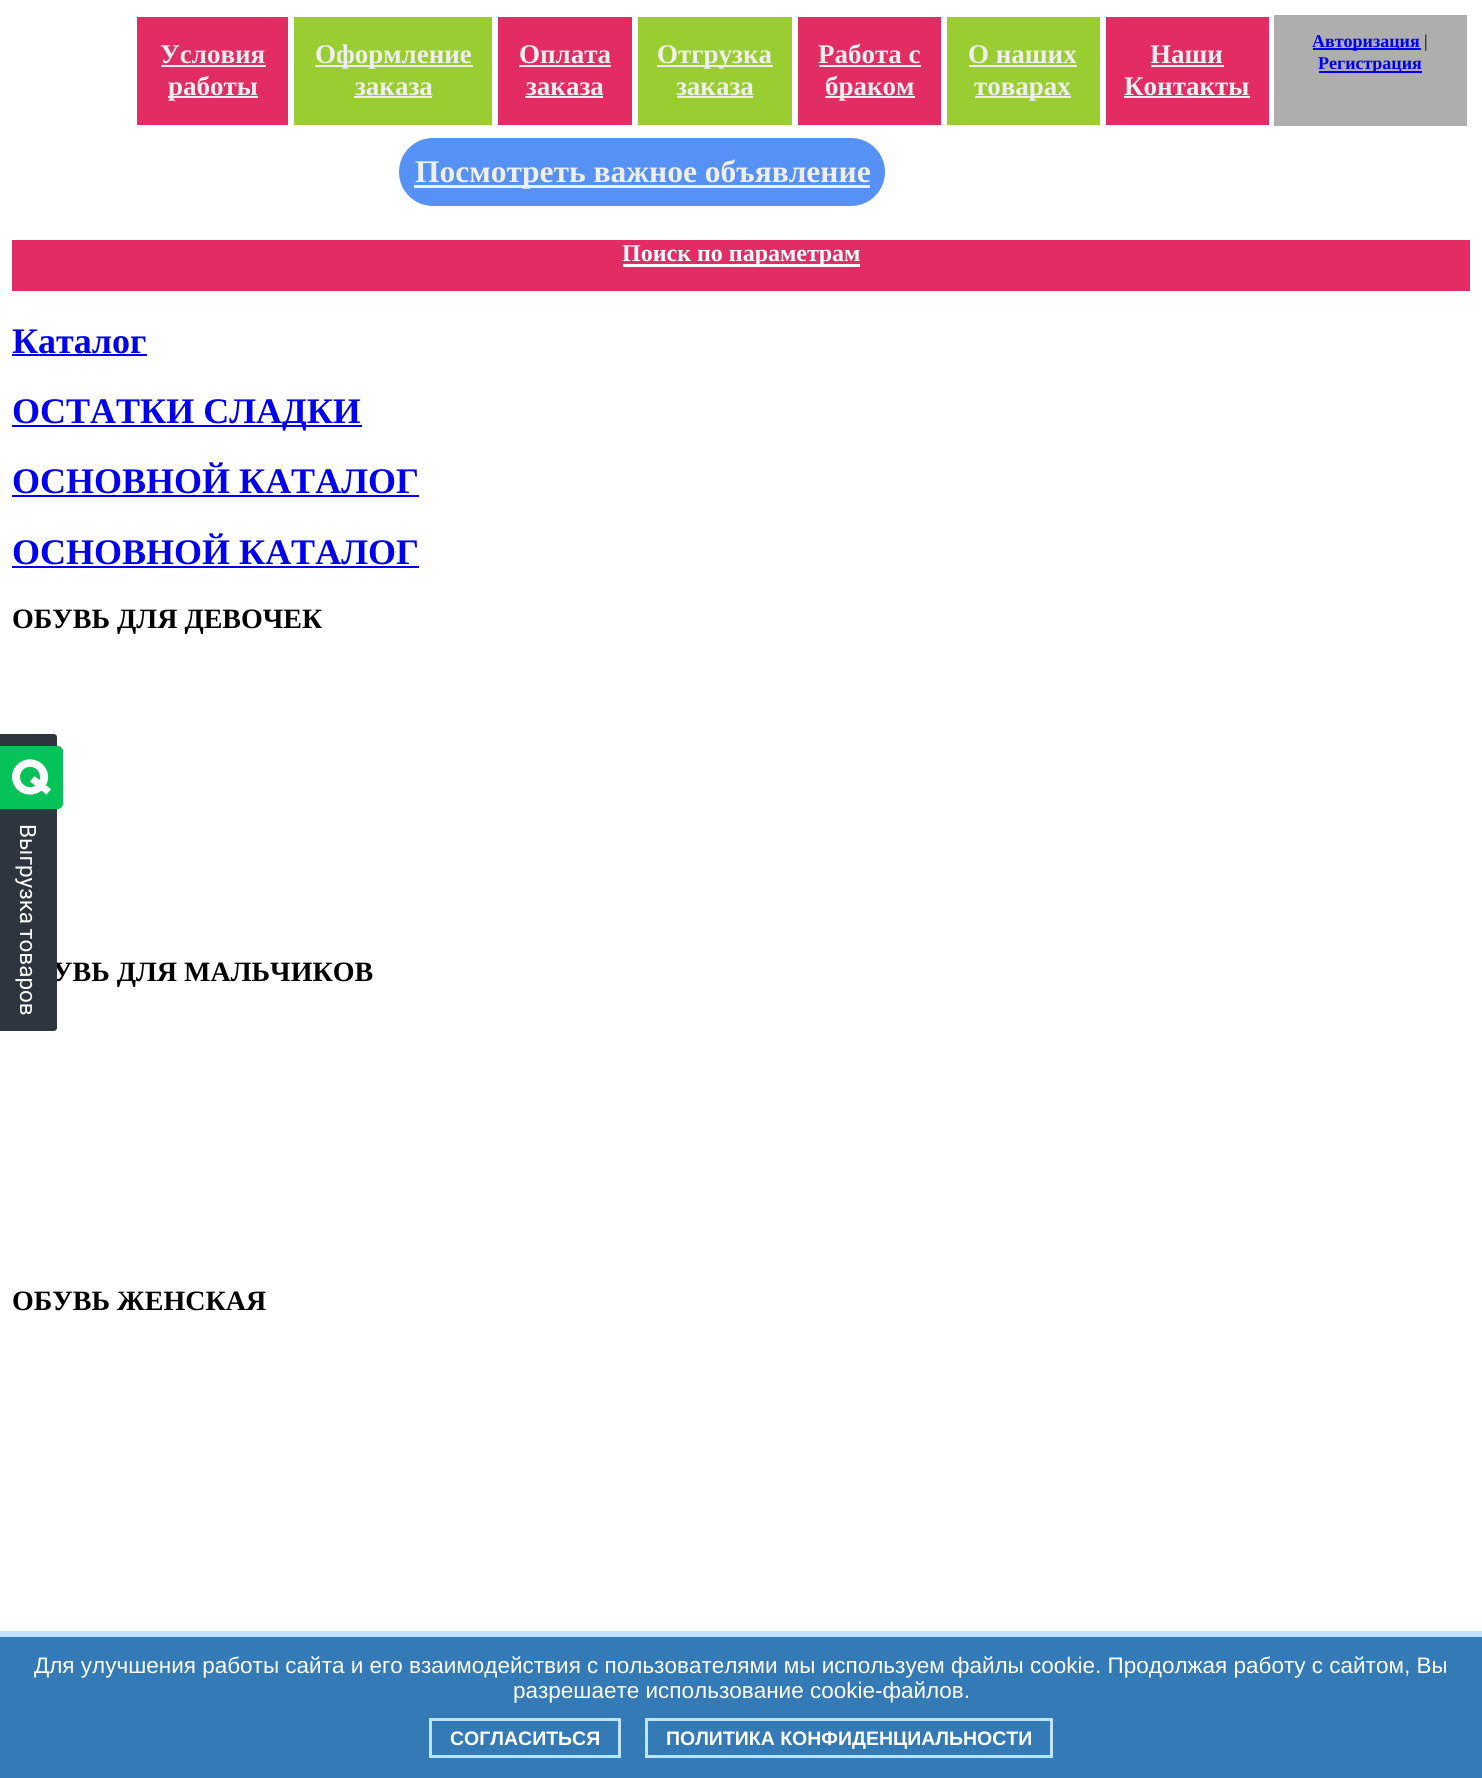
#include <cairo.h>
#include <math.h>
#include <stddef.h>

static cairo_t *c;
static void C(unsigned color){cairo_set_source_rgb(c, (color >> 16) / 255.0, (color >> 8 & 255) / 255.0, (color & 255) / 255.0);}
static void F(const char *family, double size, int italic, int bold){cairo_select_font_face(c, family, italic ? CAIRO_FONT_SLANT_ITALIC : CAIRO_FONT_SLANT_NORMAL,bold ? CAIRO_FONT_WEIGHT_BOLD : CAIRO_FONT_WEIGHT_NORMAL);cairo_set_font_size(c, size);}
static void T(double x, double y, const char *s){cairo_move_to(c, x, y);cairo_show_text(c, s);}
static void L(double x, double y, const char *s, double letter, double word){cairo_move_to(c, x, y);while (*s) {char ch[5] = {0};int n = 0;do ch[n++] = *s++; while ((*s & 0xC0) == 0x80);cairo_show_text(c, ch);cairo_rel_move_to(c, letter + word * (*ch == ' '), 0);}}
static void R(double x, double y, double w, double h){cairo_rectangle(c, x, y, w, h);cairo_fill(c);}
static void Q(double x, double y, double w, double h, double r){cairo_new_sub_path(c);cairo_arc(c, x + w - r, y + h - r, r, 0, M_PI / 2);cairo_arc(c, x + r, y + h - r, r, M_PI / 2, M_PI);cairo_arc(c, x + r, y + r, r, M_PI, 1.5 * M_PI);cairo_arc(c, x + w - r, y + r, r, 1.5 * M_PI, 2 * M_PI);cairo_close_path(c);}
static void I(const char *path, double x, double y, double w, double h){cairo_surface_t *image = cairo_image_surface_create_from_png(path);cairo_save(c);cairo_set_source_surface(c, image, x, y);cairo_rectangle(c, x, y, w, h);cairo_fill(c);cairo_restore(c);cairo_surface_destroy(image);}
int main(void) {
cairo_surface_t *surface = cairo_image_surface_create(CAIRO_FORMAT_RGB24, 1482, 1778);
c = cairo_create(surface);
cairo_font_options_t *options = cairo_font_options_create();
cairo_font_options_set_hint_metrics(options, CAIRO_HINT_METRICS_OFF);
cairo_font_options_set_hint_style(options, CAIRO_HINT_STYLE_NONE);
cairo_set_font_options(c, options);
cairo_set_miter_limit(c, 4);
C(0xffffff);
cairo_paint(c);
C(0xe32c64);
R(137,17,151,108);
F("Liberation Serif",27,0,1);
C(0xefefef);
T(160,63,"Условия");
R(161,65,105,2);
R(168,96,90,2);
T(168,95,"работы");
C(0x9acd32);
R(294,17,198,108);
C(0xefefef);
R(315,65,158,2);
T(315,63,"Оформление");
T(355,95,"заказа");
R(354,96,78,2);
C(0xe32c64);
R(498,17,134,108);
C(0xefefef);
T(519,63,"Оплата");
R(519,65,92,2);
T(526,95,"заказа");
R(525,96,78,2);
C(0x9acd32);
R(638,17,154,108);
C(0xefefef);
R(657,65,116,2);
T(657,63,"Отгрузка");
T(676,95,"заказа");
R(677,96,76,2);
C(0xe32c64);
R(798,17,143,108);
C(0xefefef);
T(818,63,"Работа с");
R(819,65,102,2);
R(825,96,90,2);
T(825,95,"браком");
C(0x9acd32);
R(947,17,153,108);
C(0xefefef);
T(968,63,"О наших");
R(969,65,108,2);
R(975,96,96,2);
T(974,95,"товарах");
C(0xe32c64);
R(1106,17,163,108);
C(0xefefef);
T(1150,63,"Наши");
R(1151,65,73,2);
T(1124,95,"Контакты");
R(1124,96,126,2);
C(0xaeaeae);
R(1274,15,193,111);
C(0x0000ee);
R(1313,48,108,2);
F("Liberation Serif",18,0,1);
T(1312,47,"Авторизация");
F("Liberation Serif",18,0,0);
C(0x000000);
T(1424,47,"|");
C(0x0000ee);
R(1319,71,103,2);
F("Liberation Serif",18,0,1);
T(1318,69,"Регистрация");
C(0x5691f5);
Q(399,138,486,68,34);
cairo_fill(c);
C(0xefefef);
R(414,185,456,3);
F("Liberation Serif",31.5,0,1);
T(415,182,"Посмотреть важное объявление");
C(0xe32c64);
R(12,240,1458,51);
C(0xffffff);
R(623,264,237,3);
F("Liberation Serif",24,0,1);
T(622,261,"Поиск по параметрам");
F("Liberation Serif",36,0,1);
C(0x0000ee);
T(12,353,"Каталог");
R(12,354,135,2);
R(12,425,350,2);
T(12,423,"ОСТАТКИ СЛАДКИ");
T(12,493,"ОСНОВНОЙ КАТАЛОГ");
R(12,495,407,2);
T(12,564,"ОСНОВНОЙ КАТАЛОГ");
R(12,566,407,2);
F("Liberation Serif",28,0,1);
C(0x000000);
T(12,628,"ОБУВЬ ДЛЯ ДЕВОЧЕК");
T(52,981,"УВЬ ДЛЯ МАЛЬЧИКОВ");
T(12,1310,"ОБУВЬ ЖЕНСКАЯ");
C(0x2f353e);
cairo_new_path(c);
cairo_move_to(c,0,734);
cairo_line_to(c,54,734);
cairo_curve_to(c,55.5,734,57,735.5,57,737);
cairo_line_to(c,57,1028);
cairo_curve_to(c,57,1029.5,55.5,1031,54,1031);
cairo_line_to(c,0,1031);
cairo_close_path(c);
cairo_fill(c);
C(0x06c359);
cairo_new_path(c);
cairo_move_to(c,0,746);
cairo_line_to(c,57,746);
cairo_curve_to(c,60.5,746,63,748.5,63,752);
cairo_line_to(c,63,803);
cairo_curve_to(c,63,806.5,60.5,809,57,809);
cairo_line_to(c,0,809);
cairo_close_path(c);
cairo_fill(c);
Q(0,746,63,63,6);
cairo_fill(c);
I("1.png",12,759,39,36);
F("Roboto",22.5,0,0);
C(0xffffff);
cairo_save(c);
cairo_translate(c,20,824);
cairo_rotate(c,90 * M_PI / 180);
L(0,0,"Выгрузка товаров",0,-1);
cairo_restore(c);
C(0x337ab7);
R(0,1637,1482,141);
C(0xbfe2ff);
R(0,1631,1482,6);
F("Liberation Sans",22.5,0,0);
C(0xffffff);
T(34,1673,"Для улучшения работы сайта и его взаимодействия с пользователями мы используем файлы cookie. Продолжая работу с сайтом, Вы");
T(513,1698,"разрешаете использование cookie-файлов.");
cairo_rectangle(c,430.5,1719.5,189,37);
C(0xbfe2ff);
cairo_set_line_width(c,3);
cairo_stroke(c);
F("Liberation Sans",19.5,0,1);
C(0xffffff);
T(450,1745,"СОГЛАСИТЬСЯ");
cairo_rectangle(c,646.5,1719.5,405,37);
C(0xbfe2ff);
cairo_stroke(c);
C(0xffffff);
T(666,1745,"ПОЛИТИКА КОНФИДЕНЦИАЛЬНОСТИ");
cairo_surface_write_to_png(surface, "o.png");
cairo_font_options_destroy(options);
cairo_destroy(c);
cairo_surface_destroy(surface);
return 0;
}
